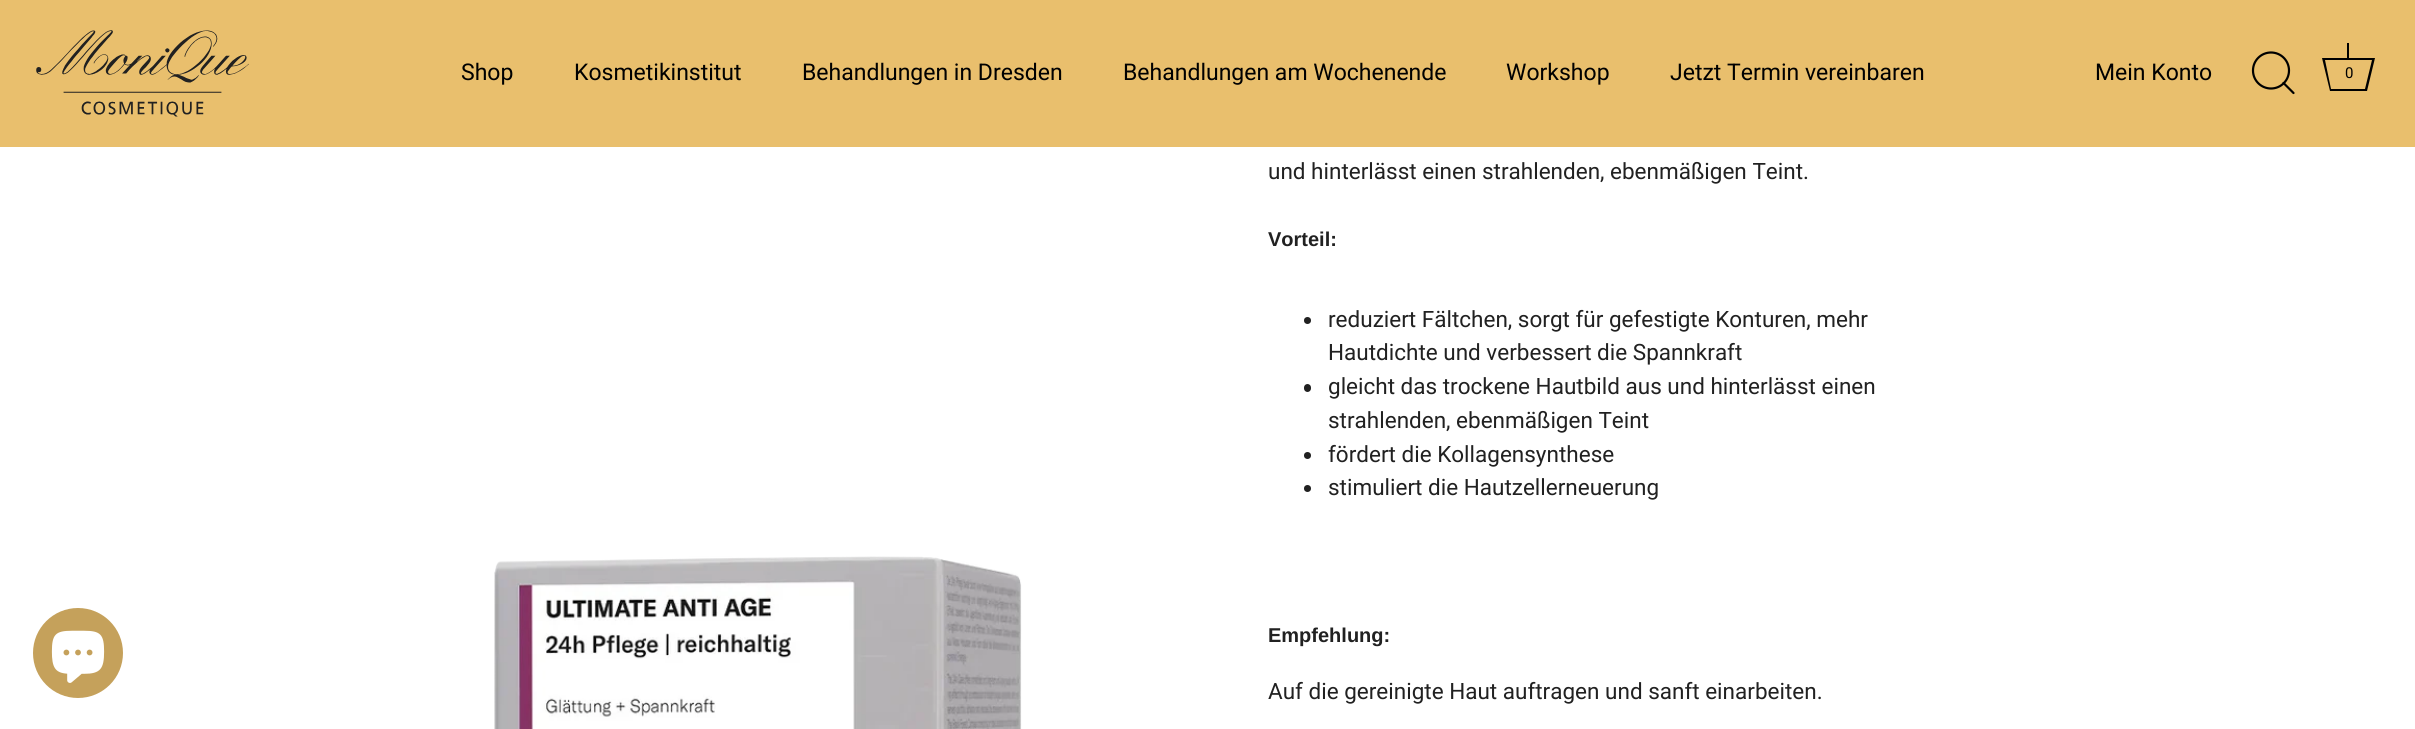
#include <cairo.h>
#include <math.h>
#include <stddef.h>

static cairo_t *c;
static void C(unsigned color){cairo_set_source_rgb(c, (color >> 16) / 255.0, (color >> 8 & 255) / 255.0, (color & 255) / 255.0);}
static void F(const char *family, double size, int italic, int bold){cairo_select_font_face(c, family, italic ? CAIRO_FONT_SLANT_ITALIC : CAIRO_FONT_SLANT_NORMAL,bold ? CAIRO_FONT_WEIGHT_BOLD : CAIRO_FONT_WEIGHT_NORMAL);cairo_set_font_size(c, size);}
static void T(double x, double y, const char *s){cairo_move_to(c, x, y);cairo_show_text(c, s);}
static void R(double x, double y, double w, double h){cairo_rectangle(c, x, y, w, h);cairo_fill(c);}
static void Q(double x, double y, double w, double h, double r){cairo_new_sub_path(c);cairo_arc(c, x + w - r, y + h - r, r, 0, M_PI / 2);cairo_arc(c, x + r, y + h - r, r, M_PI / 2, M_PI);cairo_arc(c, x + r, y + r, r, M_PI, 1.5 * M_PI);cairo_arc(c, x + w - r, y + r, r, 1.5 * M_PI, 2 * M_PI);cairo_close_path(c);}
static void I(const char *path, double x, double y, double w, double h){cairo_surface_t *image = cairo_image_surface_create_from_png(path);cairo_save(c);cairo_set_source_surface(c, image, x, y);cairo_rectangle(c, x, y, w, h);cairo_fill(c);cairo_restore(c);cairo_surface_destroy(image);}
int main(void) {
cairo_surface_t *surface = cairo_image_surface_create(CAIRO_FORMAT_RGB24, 2415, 729);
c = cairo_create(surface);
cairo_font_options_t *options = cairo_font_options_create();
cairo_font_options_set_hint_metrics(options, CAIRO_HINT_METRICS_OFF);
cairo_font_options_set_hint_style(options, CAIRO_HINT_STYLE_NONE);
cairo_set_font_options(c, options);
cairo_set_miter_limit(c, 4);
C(0xffffff);
cairo_paint(c);
C(0xe9bf6d);
R(0,0,2415,147);
I("1.png",36,30,213,87);
F("Roboto",23,0,0);
C(0x000000);
T(461,80,"Shop");
T(574,80,"Kosmetikinstitut");
T(802,80,"Behandlungen in Dresden");
T(1123,80,"Behandlungen am Wochenende");
T(1506,80,"Workshop");
T(1670,80,"Jetzt Termin vereinbaren");
T(2095,80,"Mein Konto");
cairo_new_path(c);
cairo_arc(c,2271,70.5,18,0,2 * M_PI);
cairo_set_line_width(c,2.2);
cairo_stroke(c);
cairo_new_path(c);
cairo_move_to(c,2293.5,93);
cairo_line_to(c,2283.5,83);
cairo_set_line_cap(c,CAIRO_LINE_CAP_ROUND);
cairo_set_line_join(c,CAIRO_LINE_JOIN_ROUND);
cairo_stroke(c);
R(2347,43,2,15);
cairo_new_path(c);
cairo_move_to(c,2372,60);
cairo_line_to(c,2365,89);
cairo_line_to(c,2331,89);
cairo_line_to(c,2325,60);
cairo_line_to(c,2372,60);
cairo_move_to(c,2375,58);
cairo_line_to(c,2322,58);
cairo_line_to(c,2330,91);
cairo_line_to(c,2367,91);
cairo_close_path(c);
cairo_fill(c);
F("Roboto",15,0,0);
T(2345,78,"0");
C(0xc5a15b);
cairo_new_path(c);
cairo_arc(c,78,653,45,0,2 * M_PI);
cairo_fill(c);
I("2.png",51,630,54,53);
I("3.png",494,556,528,173);
F("Roboto",22.5,0,0);
C(0x212121);
T(1268,179,"und hinterlässt einen strahlenden, ebenmäßigen Teint.");
F("Liberation Sans",20,0,1);
T(1268,246,"Vorteil:");
cairo_new_path(c);
cairo_arc(c,1307.5,320.5,3.5,0,2 * M_PI);
cairo_fill(c);
F("Roboto",22.5,0,0);
T(1328,327,"reduziert Fältchen, sorgt für gefestigte Konturen, mehr");
T(1328,360,"Hautdichte und verbessert die Spannkraft");
Q(1304,384,7,8,3.5);
cairo_fill(c);
T(1328,394,"gleicht das trockene Hautbild aus und hinterlässt einen");
T(1328,428,"strahlenden, ebenmäßigen Teint");
cairo_new_path(c);
cairo_arc(c,1307.5,455.5,3.5,0,2 * M_PI);
cairo_fill(c);
T(1328,462,"fördert die Kollagensynthese");
cairo_new_path(c);
cairo_arc(c,1307.5,488.5,3.5,0,2 * M_PI);
cairo_fill(c);
T(1328,495,"stimuliert die Hautzellerneuerung");
F("Liberation Sans",20,0,1);
T(1268,642,"Empfehlung:");
F("Roboto",22.5,0,0);
T(1268,699,"Auf die gereinigte Haut auftragen und sanft einarbeiten.");
cairo_surface_write_to_png(surface, "o.png");
cairo_font_options_destroy(options);
cairo_destroy(c);
cairo_surface_destroy(surface);
return 0;
}
